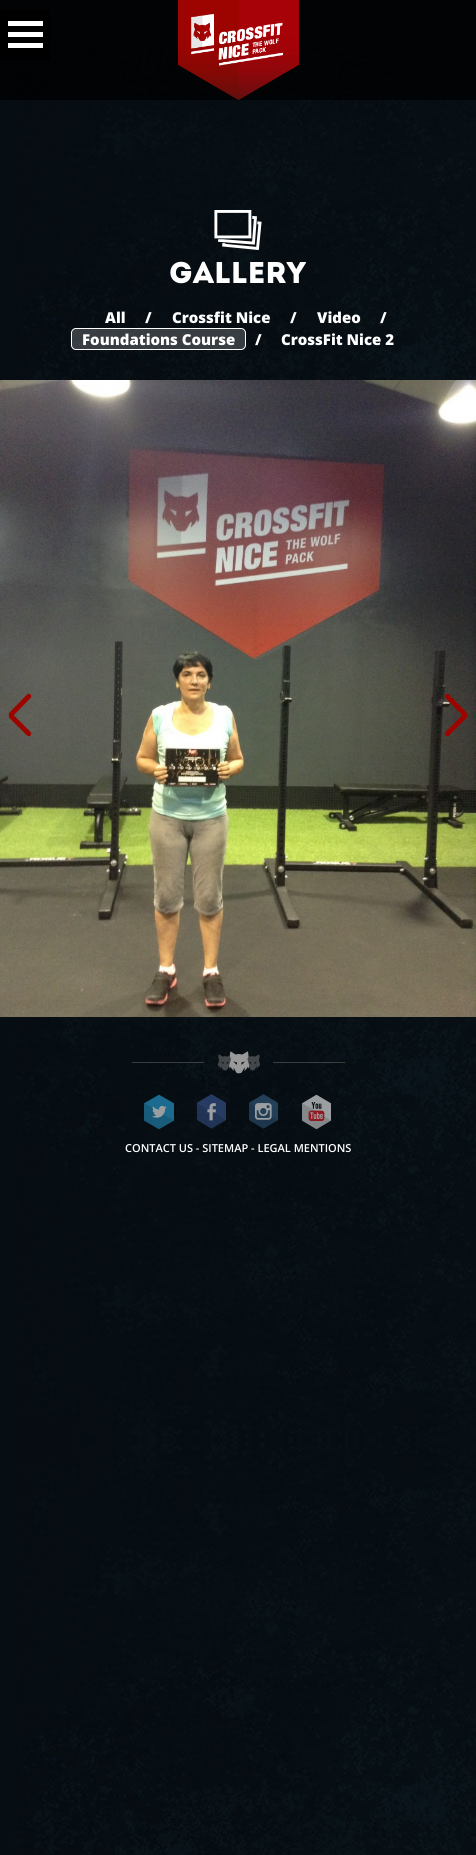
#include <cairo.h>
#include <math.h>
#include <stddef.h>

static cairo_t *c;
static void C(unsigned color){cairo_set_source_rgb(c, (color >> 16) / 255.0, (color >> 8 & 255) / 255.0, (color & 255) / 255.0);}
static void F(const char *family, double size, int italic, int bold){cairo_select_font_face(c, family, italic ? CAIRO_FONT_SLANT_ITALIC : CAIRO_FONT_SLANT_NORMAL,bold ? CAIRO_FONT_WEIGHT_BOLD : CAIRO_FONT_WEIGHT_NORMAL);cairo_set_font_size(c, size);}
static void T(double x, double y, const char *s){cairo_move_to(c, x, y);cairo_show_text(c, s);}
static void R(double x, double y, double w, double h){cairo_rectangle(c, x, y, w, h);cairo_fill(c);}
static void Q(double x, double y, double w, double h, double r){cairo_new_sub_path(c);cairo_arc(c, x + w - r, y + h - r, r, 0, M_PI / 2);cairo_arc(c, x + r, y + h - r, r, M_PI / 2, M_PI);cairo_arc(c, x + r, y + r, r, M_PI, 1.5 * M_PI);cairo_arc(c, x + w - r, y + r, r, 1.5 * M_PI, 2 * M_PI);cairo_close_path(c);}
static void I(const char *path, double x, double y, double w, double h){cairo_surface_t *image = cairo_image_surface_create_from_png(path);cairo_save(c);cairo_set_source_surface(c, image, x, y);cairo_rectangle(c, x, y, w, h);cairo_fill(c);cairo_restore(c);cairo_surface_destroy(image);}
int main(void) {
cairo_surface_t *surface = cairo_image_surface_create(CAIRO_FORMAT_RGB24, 476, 1855);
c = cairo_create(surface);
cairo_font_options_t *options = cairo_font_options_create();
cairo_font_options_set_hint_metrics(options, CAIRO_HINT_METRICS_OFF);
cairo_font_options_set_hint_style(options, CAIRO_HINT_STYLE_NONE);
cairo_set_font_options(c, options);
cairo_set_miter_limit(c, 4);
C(0x060d13);
cairo_paint(c);
I("1.png",15,47,461,1808);
cairo_set_source_rgba(c,0,0,0,0.8);
R(0,0,476,100);
C(0x000000);
R(0,10,50,50);
C(0xffffff);
R(8,21,35,5);
R(8,32,35,5);
R(8,43,35,5);
I("2.png",178,0,121,100);
I("3.png",214,210,48,40);
F("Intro",30,0,0);
T(169,283,"Gallery");
F("Open Sans ExtraBold",15,0,0);
T(105,323,"All");
T(145,323,"/");
T(172,323,"Crossfit Nice");
T(290,323,"/");
T(317,323,"Video");
T(380,323,"/");
cairo_set_source_rgba(c,1,1,1,0.2);
Q(71.5,328.5,174,21,4.5);
cairo_fill_preserve(c);
C(0xffffff);
cairo_set_line_width(c,1);
cairo_stroke(c);
T(82,345,"Foundations Course");
T(255,345,"/");
T(281,345,"CrossFit Nice 2");
I("4.png",0,380,476,637);
C(0x9c0400);
cairo_new_path(c);
cairo_move_to(c,9.5,712.5);
cairo_line_to(c,27,694.5);
cairo_curve_to(c,28,693.5,29.5,693.5,30.5,694.5);
cairo_curve_to(c,31.5,695.5,31.5,697,30.5,698);
cairo_line_to(c,13,716);
cairo_curve_to(c,12,717,10.5,717,9.5,716);
cairo_curve_to(c,8.5,715,8.5,713.5,9.5,712.5);
cairo_close_path(c);
cairo_fill(c);
cairo_new_path(c);
cairo_move_to(c,13,714.5);
cairo_line_to(c,30.5,732);
cairo_curve_to(c,31.5,733,31.5,734.5,30.5,735.5);
cairo_curve_to(c,29.5,736.5,28,736.5,27,735.5);
cairo_line_to(c,9.5,718);
cairo_curve_to(c,8.5,717,8.5,715.5,9.5,714.5);
cairo_curve_to(c,10.5,713.5,12,713.5,13,714.5);
cairo_close_path(c);
cairo_fill(c);
cairo_new_path(c);
cairo_move_to(c,445.5,732);
cairo_line_to(c,463,714.5);
cairo_curve_to(c,464,713.5,465.5,713.5,466.5,714.5);
cairo_curve_to(c,467.5,715.5,467.5,717,466.5,718);
cairo_line_to(c,449,735.5);
cairo_curve_to(c,448,736.5,446.5,736.5,445.5,735.5);
cairo_curve_to(c,444.5,734.5,444.5,733,445.5,732);
cairo_close_path(c);
cairo_fill(c);
cairo_new_path(c);
cairo_move_to(c,449,694.5);
cairo_line_to(c,466.5,712.5);
cairo_curve_to(c,467.5,713.5,467.5,715,466.5,716);
cairo_curve_to(c,465.5,717,464,717,463,716);
cairo_line_to(c,445.5,698);
cairo_curve_to(c,444.5,697,444.5,695.5,445.5,694.5);
cairo_curve_to(c,446.5,693.5,448,693.5,449,694.5);
cairo_close_path(c);
cairo_fill(c);
I("5.png",132,1051,213,23);
I("6.png",144,1094,30,36);
I("7.png",197,1094,29,35);
I("8.png",249,1094,29,35);
I("9.png",302,1094,29,36);
F("Open Sans SemiBold",11,0,0);
C(0xffffff);
T(125,1152,"CONTACT US - SITEMAP - LEGAL MENTIONS");
cairo_surface_write_to_png(surface, "o.png");
cairo_font_options_destroy(options);
cairo_destroy(c);
cairo_surface_destroy(surface);
return 0;
}
